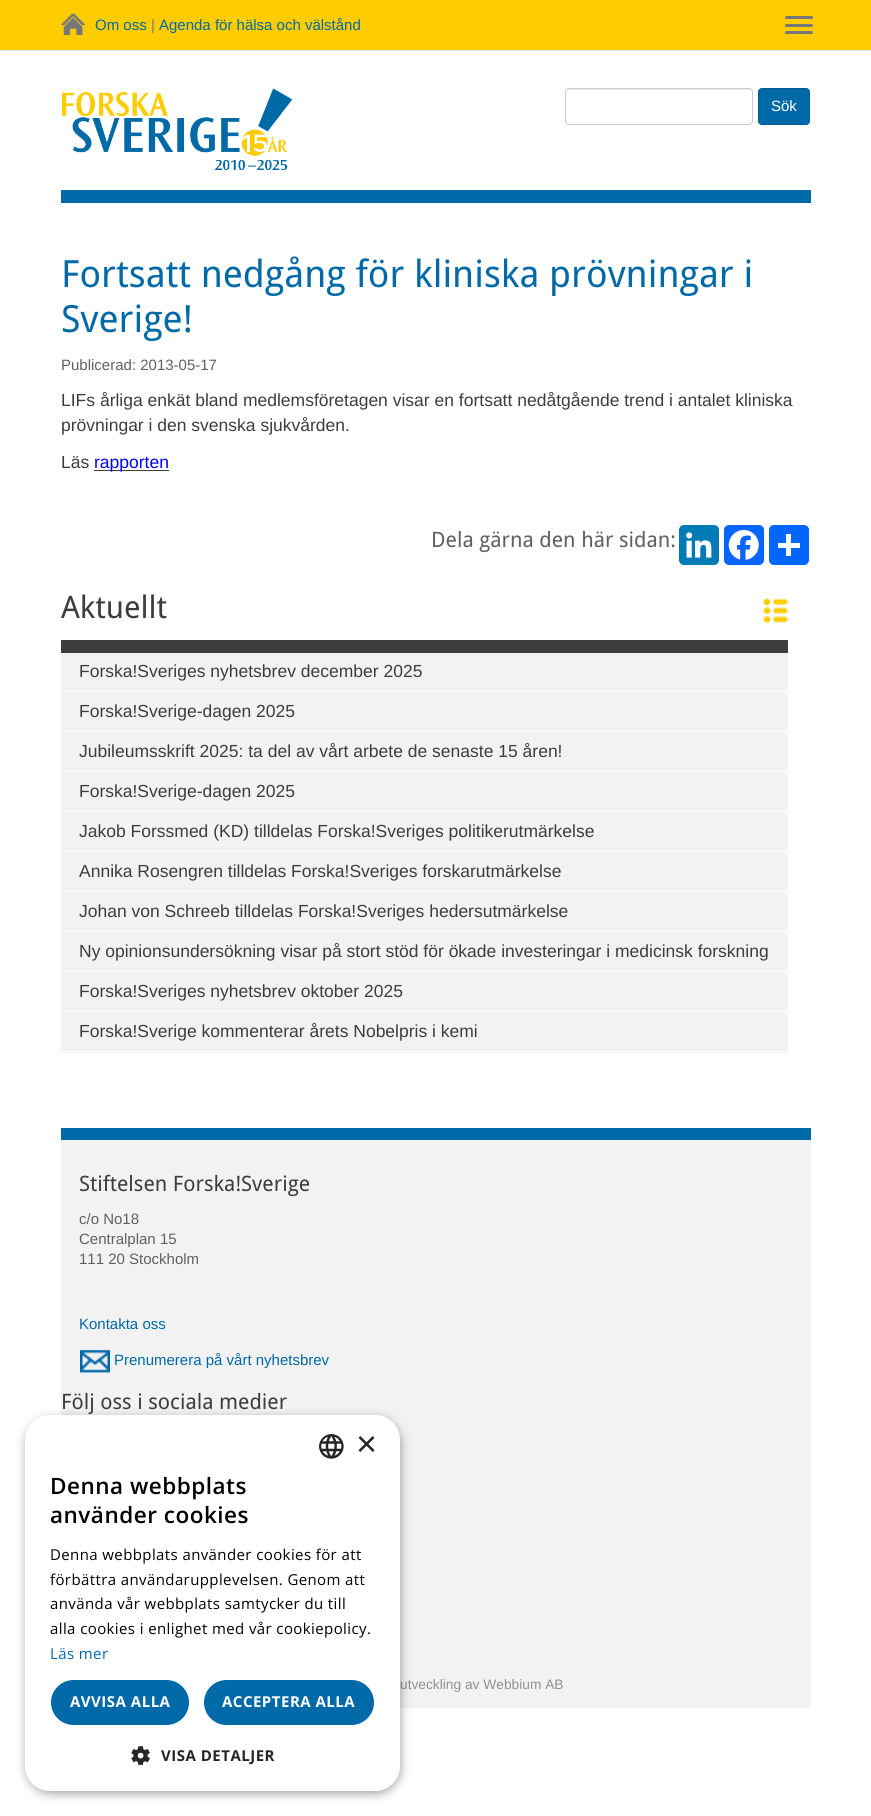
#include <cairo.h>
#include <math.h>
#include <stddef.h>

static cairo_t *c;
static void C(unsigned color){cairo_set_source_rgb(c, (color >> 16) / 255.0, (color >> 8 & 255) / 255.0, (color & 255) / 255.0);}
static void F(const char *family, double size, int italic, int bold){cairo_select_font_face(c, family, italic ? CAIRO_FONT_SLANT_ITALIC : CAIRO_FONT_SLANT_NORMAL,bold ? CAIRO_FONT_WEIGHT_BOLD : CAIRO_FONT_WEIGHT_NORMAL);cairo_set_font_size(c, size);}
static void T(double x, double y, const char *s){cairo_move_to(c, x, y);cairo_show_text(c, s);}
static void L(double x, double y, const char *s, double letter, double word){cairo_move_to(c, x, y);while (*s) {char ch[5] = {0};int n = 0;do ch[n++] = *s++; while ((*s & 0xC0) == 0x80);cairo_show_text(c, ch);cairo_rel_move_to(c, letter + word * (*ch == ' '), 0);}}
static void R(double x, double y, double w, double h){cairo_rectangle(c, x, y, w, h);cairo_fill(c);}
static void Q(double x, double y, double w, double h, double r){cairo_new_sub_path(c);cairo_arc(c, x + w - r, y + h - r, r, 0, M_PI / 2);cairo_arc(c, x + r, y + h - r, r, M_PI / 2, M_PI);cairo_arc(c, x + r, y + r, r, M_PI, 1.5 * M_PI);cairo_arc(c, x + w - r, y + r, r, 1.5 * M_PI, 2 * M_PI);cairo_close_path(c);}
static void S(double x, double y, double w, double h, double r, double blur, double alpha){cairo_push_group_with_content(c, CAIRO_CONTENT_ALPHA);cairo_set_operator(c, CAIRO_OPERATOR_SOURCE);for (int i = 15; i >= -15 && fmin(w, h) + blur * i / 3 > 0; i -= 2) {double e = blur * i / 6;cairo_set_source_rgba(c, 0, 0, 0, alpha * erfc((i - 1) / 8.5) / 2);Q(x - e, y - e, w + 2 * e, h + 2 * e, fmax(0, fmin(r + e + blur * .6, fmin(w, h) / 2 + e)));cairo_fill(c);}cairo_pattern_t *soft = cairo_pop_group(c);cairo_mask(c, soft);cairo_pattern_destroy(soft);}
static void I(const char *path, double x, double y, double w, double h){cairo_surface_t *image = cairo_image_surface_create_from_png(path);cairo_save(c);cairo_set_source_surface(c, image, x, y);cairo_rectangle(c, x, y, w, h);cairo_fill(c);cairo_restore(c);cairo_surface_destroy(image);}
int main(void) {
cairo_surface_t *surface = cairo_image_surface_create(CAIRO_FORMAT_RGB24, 871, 1816);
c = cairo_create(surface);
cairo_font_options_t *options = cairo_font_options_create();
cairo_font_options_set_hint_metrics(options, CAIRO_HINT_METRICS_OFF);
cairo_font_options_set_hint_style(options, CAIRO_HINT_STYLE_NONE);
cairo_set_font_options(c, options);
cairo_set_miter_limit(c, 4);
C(0xffffff);
cairo_paint(c);
C(0xffcc00);
R(0,0,871,50);
C(0xe7e7e7);
R(0,50,871,1);
I("1.png",61,13,24,22);
F("Liberation Sans",15,0,0);
C(0x0069a7);
T(95,30,"Om oss");
C(0x777777);
T(151,30,"|");
C(0x0069a7);
T(159,30,"Agenda för hälsa och välstånd");
C(0x777777);
Q(785,16,28,3,1.5);
cairo_fill(c);
Q(785,24,28,3,1.5);
cairo_fill(c);
Q(785,31,28,3,1.5);
cairo_fill(c);
I("2.png",62,88,231,82);
C(0xececec);
cairo_new_path(c);
cairo_move_to(c,569,90);
cairo_line_to(c,749,90);
cairo_curve_to(c,750,90,751,91,751,92);
cairo_curve_to(c,751,90,750,89,748,89);
cairo_line_to(c,568,89);
cairo_line_to(c,567,90);
cairo_line_to(c,566,92);
cairo_curve_to(c,566,91,567,90,569,90);
cairo_close_path(c);
cairo_fill(c);
Q(565.5,88.5,187,36,3.5);
C(0xcccccc);
cairo_set_line_width(c,1);
cairo_stroke(c);
C(0x0069a7);
Q(758.5,88.5,51,36,3.5);
cairo_fill_preserve(c);
C(0x00598e);
cairo_stroke(c);
C(0xffffff);
T(771,111,"Sök");
C(0x0069a7);
R(61,190,750,13);
F("Droid Sans",37.5,0,0);
T(61,287,"Fortsatt nedgång för kliniska prövningar i");
T(61,332,"Sverige!");
F("Liberation Sans",15,0,0);
C(0x606060);
T(61,370,"Publicerad: 2013-05-17");
F("Liberation Sans",17.5,0,0);
C(0x3d3d3d);
T(61,406,"LIFs årliga enkät bland medlemsföretagen visar en fortsatt nedåtgående trend i antalet kliniska");
T(61,431,"prövningar i den svenska sjukvården.");
T(61,468,"Läs");
R(94,470,75,1);
C(0x0000ff);
T(94,468,"rapporten");
F("Droid Sans",21.25,0,0);
C(0x606060);
T(431,547,"Dela gärna den här sidan:");
C(0x007bb5);
Q(679,525,40,40,5);
cairo_fill(c);
I("3.png",686,532,26,26);
C(0x0866ff);
Q(724,525,40,40,5);
cairo_fill(c);
I("4.png",728,530,31,30);
C(0x0166ff);
Q(769,525,40,40,5);
cairo_fill(c);
C(0xffffff);
R(786,534,5,22);
R(778,543,22,5);
F("Droid Sans",31,0,0);
C(0x3d3d3d);
T(61,618,"Aktuellt");
I("5.png",763,598,25,25);
C(0xf2f2f2);
R(61,653,727,400);
C(0x3d3d3d);
R(61,640,727,13);
C(0xffffff);
R(61,691,727,1);
F("Liberation Sans",17.5,0,0);
C(0x3d3d3d);
T(79,677,"Forska!Sveriges nyhetsbrev december 2025");
C(0xffffff);
R(61,731,727,1);
C(0x3d3d3d);
T(79,717,"Forska!Sverige-dagen 2025");
C(0xffffff);
R(61,771,727,1);
C(0x3d3d3d);
T(79,757,"Jubileumsskrift 2025: ta del av vårt arbete de senaste 15 åren!");
C(0xffffff);
R(61,811,727,1);
C(0x3d3d3d);
T(79,797,"Forska!Sverige-dagen 2025");
C(0xffffff);
R(61,851,727,1);
C(0x3d3d3d);
T(79,837,"Jakob Forssmed (KD) tilldelas Forska!Sveriges politikerutmärkelse");
C(0xffffff);
R(61,891,727,1);
C(0x3d3d3d);
T(79,877,"Annika Rosengren tilldelas Forska!Sveriges forskarutmärkelse");
C(0xffffff);
R(61,931,727,1);
C(0x3d3d3d);
T(79,917,"Johan von Schreeb tilldelas Forska!Sveriges hedersutmärkelse");
C(0xffffff);
R(61,971,727,1);
C(0x3d3d3d);
T(79,957,"Ny opinionsundersökning visar på stort stöd för ökade investeringar i medicinsk forskning");
C(0xffffff);
R(61,1011,727,1);
C(0x3d3d3d);
T(79,997,"Forska!Sveriges nyhetsbrev oktober 2025");
C(0xffffff);
R(61,1051,727,1);
C(0x3d3d3d);
T(79,1037,"Forska!Sverige kommenterar årets Nobelpris i kemi");
C(0xf2f2f2);
R(61,1140,750,568);
C(0x0069a7);
R(61,1128,750,12);
F("Droid Sans",21.25,0,0);
C(0x3d3d3d);
T(79,1191,"Stiftelsen Forska!Sverige");
F("Liberation Sans",15,0,0);
C(0x606060);
T(79,1224,"c/o No18");
T(79,1244,"Centralplan 15");
T(79,1264,"111 20 Stockholm");
C(0x0069a7);
T(79,1329,"Kontakta oss");
I("6.png",80,1349,30,24);
T(114,1365,"Prenumerera på vårt nyhetsbrev");
F("Droid Sans",21.25,0,0);
C(0x3d3d3d);
T(61,1409,"Följ oss i sociala medier");
F("Liberation Sans",13.75,0,0);
C(0x909090);
T(400,1689,"utveckling av Webbium AB");
C(0x000000);
S(26,1418,375,376,25,5,.35);
C(0xffffff);
Q(25,1415,375,376,25);
cairo_fill(c);
I("7.png",319,1434,25,25);
F("Liberation Sans",36,0,0);
C(0x262626);
T(356,1456,"×");
F("Open Sans SemiBold",22.5,0,0);
C(0x000000);
L(50,1494,"Denna webbplats",.5,0);
L(50,1523,"använder cookies",.5,0);
F("Open Sans",15,0,0);
L(50,1560,"Denna webbplats använder cookies för att",.4,0);
L(50,1585,"förbättra användarupplevelsen. Genom att",.4,0);
L(50,1609,"använda vår webbplats samtycker du till",.4,0);
L(50,1634,"alla cookies i enlighet med vår cookiepolicy.",.4,0);
C(0x0069a7);
L(50,1659,"Läs mer",.4,0);
Q(50.5,1679.5,139,46,23);
cairo_fill_preserve(c);
C(0xffffff);
cairo_stroke(c);
F("Open Sans",15,0,1);
L(70,1707,"AVVISA ALLA",.5,0);
C(0x0069a7);
Q(203.5,1679.5,171,46,23);
cairo_fill_preserve(c);
C(0xffffff);
cairo_stroke(c);
L(222,1707,"ACCEPTERA ALLA",.5,0);
I("8.png",131,1746,19,19);
C(0x262626);
L(161,1761,"VISA DETALJER",.5,0);
cairo_surface_write_to_png(surface, "o.png");
cairo_font_options_destroy(options);
cairo_destroy(c);
cairo_surface_destroy(surface);
return 0;
}
